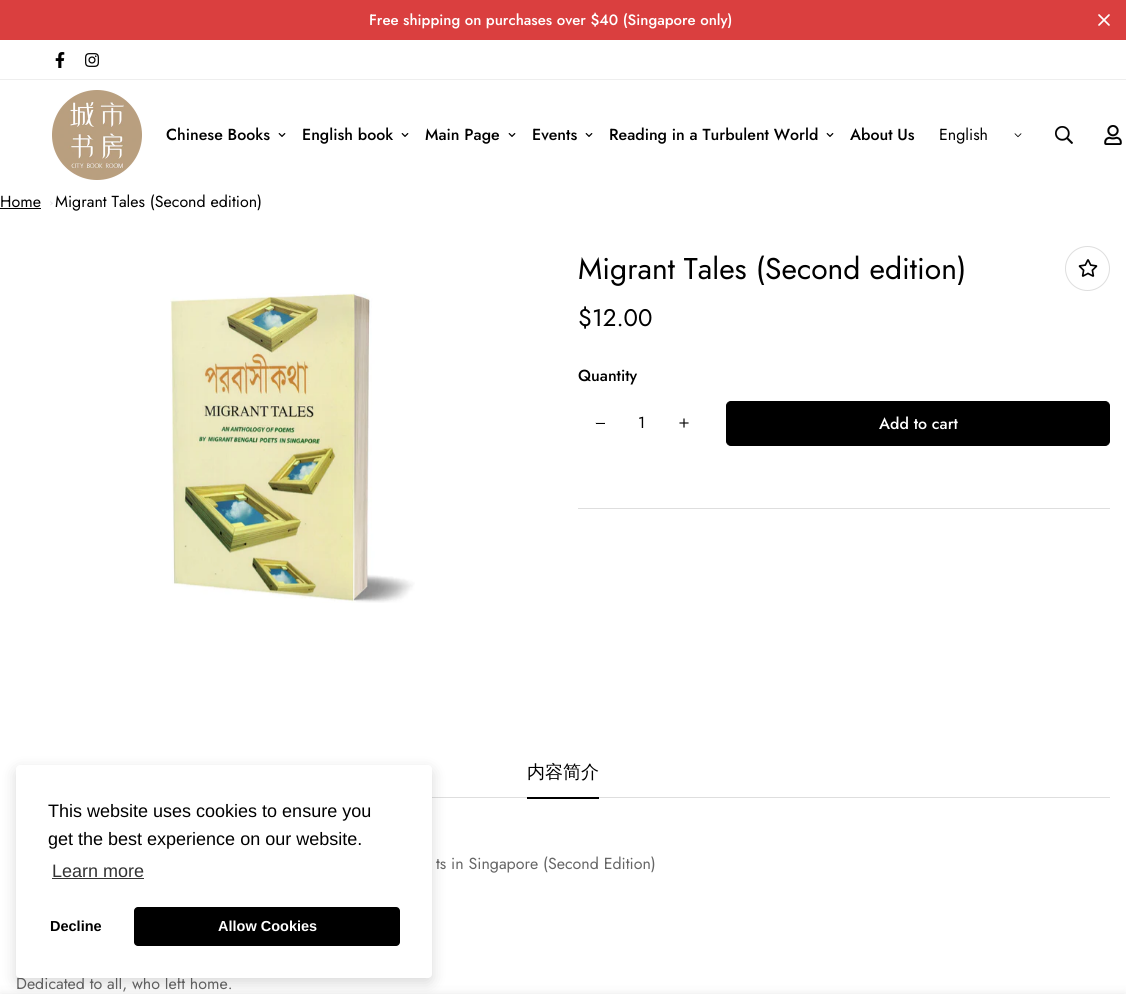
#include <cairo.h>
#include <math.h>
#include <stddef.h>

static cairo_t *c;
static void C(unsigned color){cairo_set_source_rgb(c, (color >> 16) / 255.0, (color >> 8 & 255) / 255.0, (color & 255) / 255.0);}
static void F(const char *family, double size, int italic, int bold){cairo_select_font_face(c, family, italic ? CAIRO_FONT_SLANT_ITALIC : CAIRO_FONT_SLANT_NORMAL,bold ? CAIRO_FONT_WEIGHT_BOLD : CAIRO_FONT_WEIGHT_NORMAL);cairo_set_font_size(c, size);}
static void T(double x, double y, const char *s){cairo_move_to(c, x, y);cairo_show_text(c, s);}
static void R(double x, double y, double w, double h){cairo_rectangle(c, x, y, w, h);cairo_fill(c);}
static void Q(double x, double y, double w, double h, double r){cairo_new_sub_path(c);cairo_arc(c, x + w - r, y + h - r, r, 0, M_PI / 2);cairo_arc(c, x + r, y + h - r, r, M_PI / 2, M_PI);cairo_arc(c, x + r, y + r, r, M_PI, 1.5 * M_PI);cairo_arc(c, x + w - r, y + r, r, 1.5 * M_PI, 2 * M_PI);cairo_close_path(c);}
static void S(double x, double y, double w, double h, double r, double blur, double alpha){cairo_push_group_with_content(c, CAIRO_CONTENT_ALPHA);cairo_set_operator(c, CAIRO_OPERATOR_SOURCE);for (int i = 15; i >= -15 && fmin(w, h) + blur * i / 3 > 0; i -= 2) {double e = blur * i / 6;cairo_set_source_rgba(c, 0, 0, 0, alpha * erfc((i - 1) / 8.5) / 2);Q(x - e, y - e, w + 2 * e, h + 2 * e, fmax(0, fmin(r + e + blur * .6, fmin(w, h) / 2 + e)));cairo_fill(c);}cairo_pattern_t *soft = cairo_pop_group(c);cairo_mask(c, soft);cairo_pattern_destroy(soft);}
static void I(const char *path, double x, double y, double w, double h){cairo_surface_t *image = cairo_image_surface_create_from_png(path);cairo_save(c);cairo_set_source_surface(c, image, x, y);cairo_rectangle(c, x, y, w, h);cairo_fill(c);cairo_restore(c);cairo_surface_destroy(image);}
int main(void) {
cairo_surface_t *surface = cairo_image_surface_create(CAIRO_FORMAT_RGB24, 1126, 994);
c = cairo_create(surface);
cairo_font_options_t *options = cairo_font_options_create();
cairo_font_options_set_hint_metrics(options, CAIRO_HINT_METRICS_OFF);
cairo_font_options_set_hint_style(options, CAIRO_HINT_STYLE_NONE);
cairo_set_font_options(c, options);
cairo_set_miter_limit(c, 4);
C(0xffffff);
cairo_paint(c);
C(0xda3f3f);
R(0,0,1126,40);
F("Jost Medium",15,0,0);
C(0xffffff);
T(369,25,"Free shipping on purchases over $40 (Singapore only)");
cairo_new_path(c);
cairo_move_to(c,1099,25);
cairo_line_to(c,1109,15);
cairo_move_to(c,1099,15);
cairo_line_to(c,1109,25);
cairo_set_line_width(c,1.7);
cairo_set_line_cap(c,CAIRO_LINE_CAP_ROUND);
cairo_set_line_join(c,CAIRO_LINE_JOIN_ROUND);
cairo_stroke(c);
C(0xeeeeee);
R(0,79,1126,1);
I("1.png",55,52,10,16);
I("2.png",85,53,14,14);
I("3.png",52,90,90,90);
F("Jost Medium",16,0,0);
C(0x000000);
T(166,140,"Chinese Books");
I("4.png",278,133,8,4);
T(302,140,"English book");
I("4.png",401,133,8,4);
T(425,140,"Main Page");
I("4.png",508,133,8,4);
T(532,140,"Events");
I("4.png",585,133,8,4);
T(609,140,"Reading in a Turbulent World");
I("4.png",826,133,8,4);
T(850,140,"About Us");
F("Jost",16,0,0);
T(939,140,"English");
I("5.png",1014,133,8,5);
I("6.png",1055,126,18,18);
I("7.png",1104,125,18,20);
T(0,207,"Home");
R(0,208,41,1);
C(0xe5e7eb);
cairo_new_path(c);
cairo_move_to(c,50.5,201);
cairo_line_to(c,53,203.5);
cairo_line_to(c,52,204);
cairo_line_to(c,50,202);
cairo_close_path(c);
cairo_fill(c);
cairo_new_path(c);
cairo_move_to(c,52,202.5);
cairo_line_to(c,53,203.5);
cairo_line_to(c,50.5,205.5);
cairo_line_to(c,50,205);
cairo_close_path(c);
cairo_fill(c);
C(0x000000);
T(55,207,"Migrant Tales (Second edition)");
I("8.png",170,293,245,310);
F("Jost",30,0,0);
T(578,279,"Migrant Tales (Second edition)");
cairo_new_path(c);
cairo_arc(c,1087.5,268.5,22,0,2 * M_PI);
C(0xdedede);
cairo_set_line_width(c,1);
cairo_set_line_cap(c,CAIRO_LINE_CAP_BUTT);
cairo_set_line_join(c,CAIRO_LINE_JOIN_MITER);
cairo_stroke(c);
I("9.png",1078,259,20,18);
F("Jost",24,0,0);
C(0x000000);
T(578,326,"$12.00");
F("Jost Medium",16,0,0);
T(578,381,"Quantity");
I("10.png",595,422,10,2);
F("Jost",16,0,0);
T(638,428,"1");
I("11.png",679,418,10,10);
Q(726.5,401.5,383,44,4.5);
cairo_fill_preserve(c);
cairo_stroke(c);
F("Jost Medium",16,0,0);
C(0xffffff);
T(879,429,"Add to cart");
C(0xdedede);
R(578,508,532,1);
C(0x000000);
S(0,994,1126,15,0,5,.09);
C(0xdedede);
R(432,797,678,1);
F("WenQuanYi Zen Hei Medium",18,0,0);
C(0x000000);
T(527,778,"内容简介");
R(527,797,72,2);
F("Jost",16,0,0);
C(0x666666);
T(436,869,"ts in Singapore (Second Edition)");
T(16,989,"Dedicated to all, who left home.");
C(0x000000);
S(16,770,416,213,4,7.5,.15);
C(0xffffff);
Q(16,765,416,213,4);
cairo_fill(c);
F("Liberation Sans",18,0,0);
C(0x000000);
T(48,817,"This website uses cookies to ensure you");
T(48,845,"get the best experience on our website.");
C(0x333333);
T(52,877,"Learn more");
R(52,878,92,1);
F("Liberation Sans",14.5,0,1);
C(0x000000);
T(50,931,"Decline");
Q(134,907,266,39,4);
cairo_fill(c);
C(0xffffff);
T(218,931,"Allow Cookies");
cairo_surface_write_to_png(surface, "o.png");
cairo_font_options_destroy(options);
cairo_destroy(c);
cairo_surface_destroy(surface);
return 0;
}
